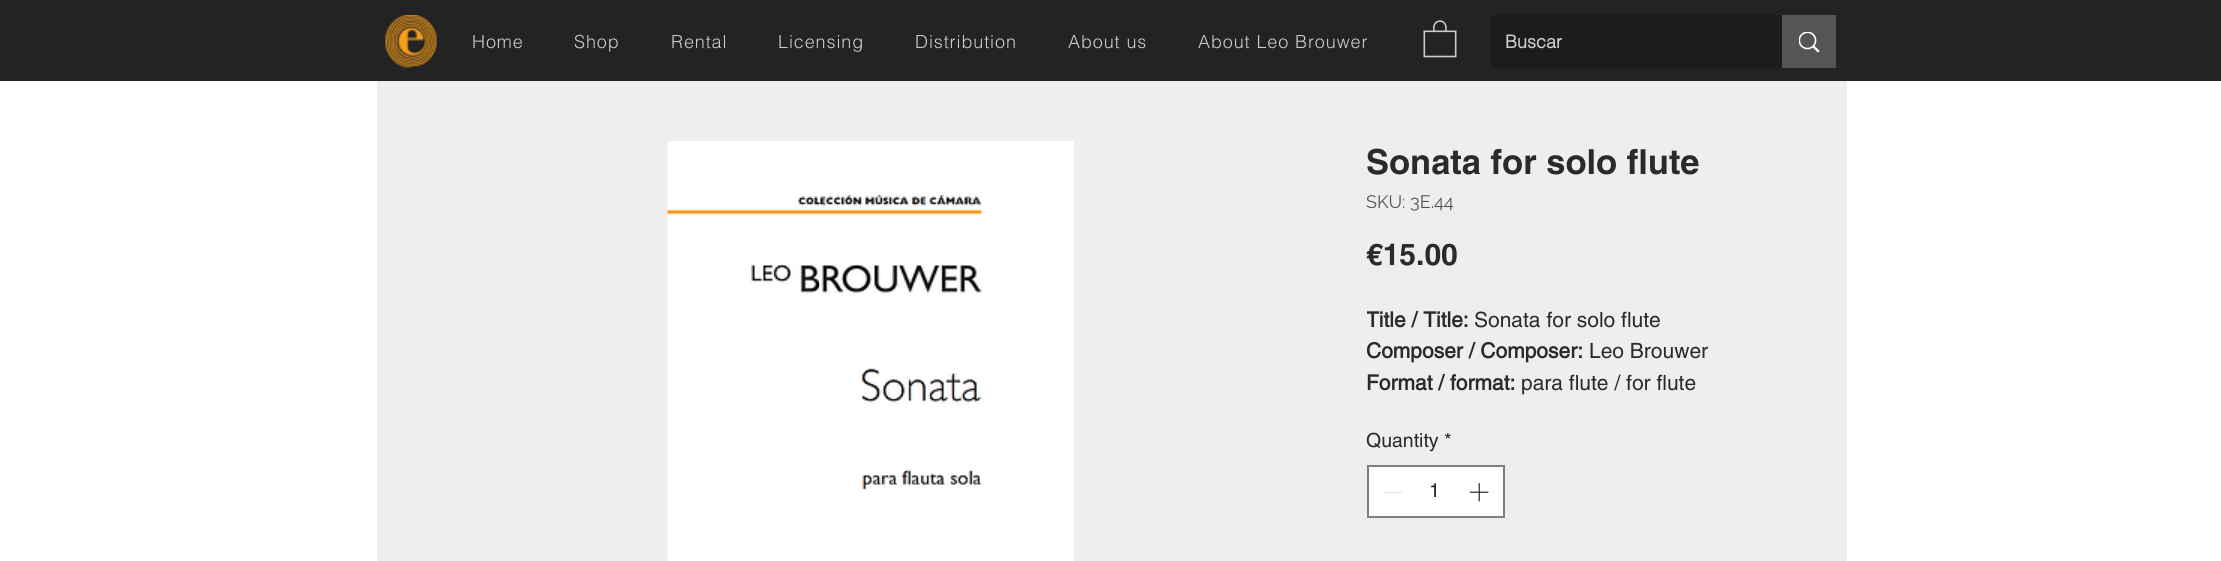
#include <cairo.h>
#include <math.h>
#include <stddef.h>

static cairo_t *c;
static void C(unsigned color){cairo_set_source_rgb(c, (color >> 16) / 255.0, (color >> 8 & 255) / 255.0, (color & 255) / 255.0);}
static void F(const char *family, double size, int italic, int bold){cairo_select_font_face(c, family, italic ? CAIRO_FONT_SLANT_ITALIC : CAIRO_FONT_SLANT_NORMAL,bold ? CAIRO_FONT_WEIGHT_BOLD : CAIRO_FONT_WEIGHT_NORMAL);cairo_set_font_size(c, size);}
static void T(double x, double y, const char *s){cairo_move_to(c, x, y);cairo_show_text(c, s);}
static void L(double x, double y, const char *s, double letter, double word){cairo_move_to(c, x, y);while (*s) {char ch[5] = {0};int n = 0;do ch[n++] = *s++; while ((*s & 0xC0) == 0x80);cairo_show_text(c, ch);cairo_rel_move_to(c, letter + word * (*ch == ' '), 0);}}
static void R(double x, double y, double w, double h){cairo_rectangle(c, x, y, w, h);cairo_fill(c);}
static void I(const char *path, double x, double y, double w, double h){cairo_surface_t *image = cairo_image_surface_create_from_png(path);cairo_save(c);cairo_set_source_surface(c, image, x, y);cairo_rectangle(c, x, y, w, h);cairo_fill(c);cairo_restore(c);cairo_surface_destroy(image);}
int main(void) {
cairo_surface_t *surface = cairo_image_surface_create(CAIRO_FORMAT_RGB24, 2221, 561);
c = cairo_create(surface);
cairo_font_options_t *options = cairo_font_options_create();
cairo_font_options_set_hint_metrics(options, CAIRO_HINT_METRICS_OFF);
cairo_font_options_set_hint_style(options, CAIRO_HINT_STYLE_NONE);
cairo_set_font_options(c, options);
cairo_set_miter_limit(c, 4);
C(0xffffff);
cairo_paint(c);
C(0x232323);
R(0,0,2221,81);
I("1.png",385,15,52,53);
F("helvetica Light",18,0,0);
C(0xcccccc);
L(472,48,"Home",.9,0);
L(574,48,"Shop",.9,0);
L(671,48,"Rental",.9,0);
L(778,48,"Licensing",.9,0);
L(915,48,"Distribution",.9,0);
L(1068,48,"About us",.9,0);
L(1198,48,"About Leo Brouwer",.9,0);
I("2.png",1423,20,34,38);
C(0x1c1c1c);
R(1491,15,291,53);
F("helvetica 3",18,0,1);
C(0xcccccc);
T(1505,48,"Buscar");
C(0x555555);
R(1782,15,54,53);
I("3.png",1799,32,21,21);
C(0xeeeeee);
R(377,81,1470,480);
I("4.png",667,141,407,420);
F("helvetica",34.5,0,1);
C(0x2a2a2a);
T(1366,174,"Sonata for solo flute");
F("Raleway",18,0,0);
C(0x555555);
T(1366,208,"SKU: 3E.44");
F("helvetica",30,0,1);
C(0x2a2a2a);
T(1366,265,"€15.00");
cairo_save(c);
cairo_rectangle(c,1367,305,372,94);
cairo_clip(c);
F("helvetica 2",21,0,1);
T(1366,327,"Title / Title:");
cairo_restore(c);
F("helvetica",21,0,0);
T(1474,327,"Sonata for solo flute");
cairo_save(c);
cairo_rectangle(c,1367,305,372,94);
cairo_clip(c);
F("helvetica 2",21,0,1);
T(1366,358,"Composer / Composer:");
cairo_restore(c);
T(1589,358,"Leo Brouwer");
F("helvetica 2",21,0,1);
T(1366,390,"Format / format:");
F("helvetica",21,0,0);
T(1521,390,"para flute / for flute");
F("helvetica",19.5,0,0);
T(1366,447,"Quantity");
T(1444,447,"*");
C(0xffffff);
cairo_rectangle(c,1368,466,136,51);
cairo_fill_preserve(c);
C(0x7f7f7f);
cairo_stroke(c);
C(0xe3e3e3);
R(1383,492,19,1);
C(0x2a2a2a);
T(1429,497,"1");
I("5.png",1470,483,19,19);
cairo_surface_write_to_png(surface, "o.png");
cairo_font_options_destroy(options);
cairo_destroy(c);
cairo_surface_destroy(surface);
return 0;
}
